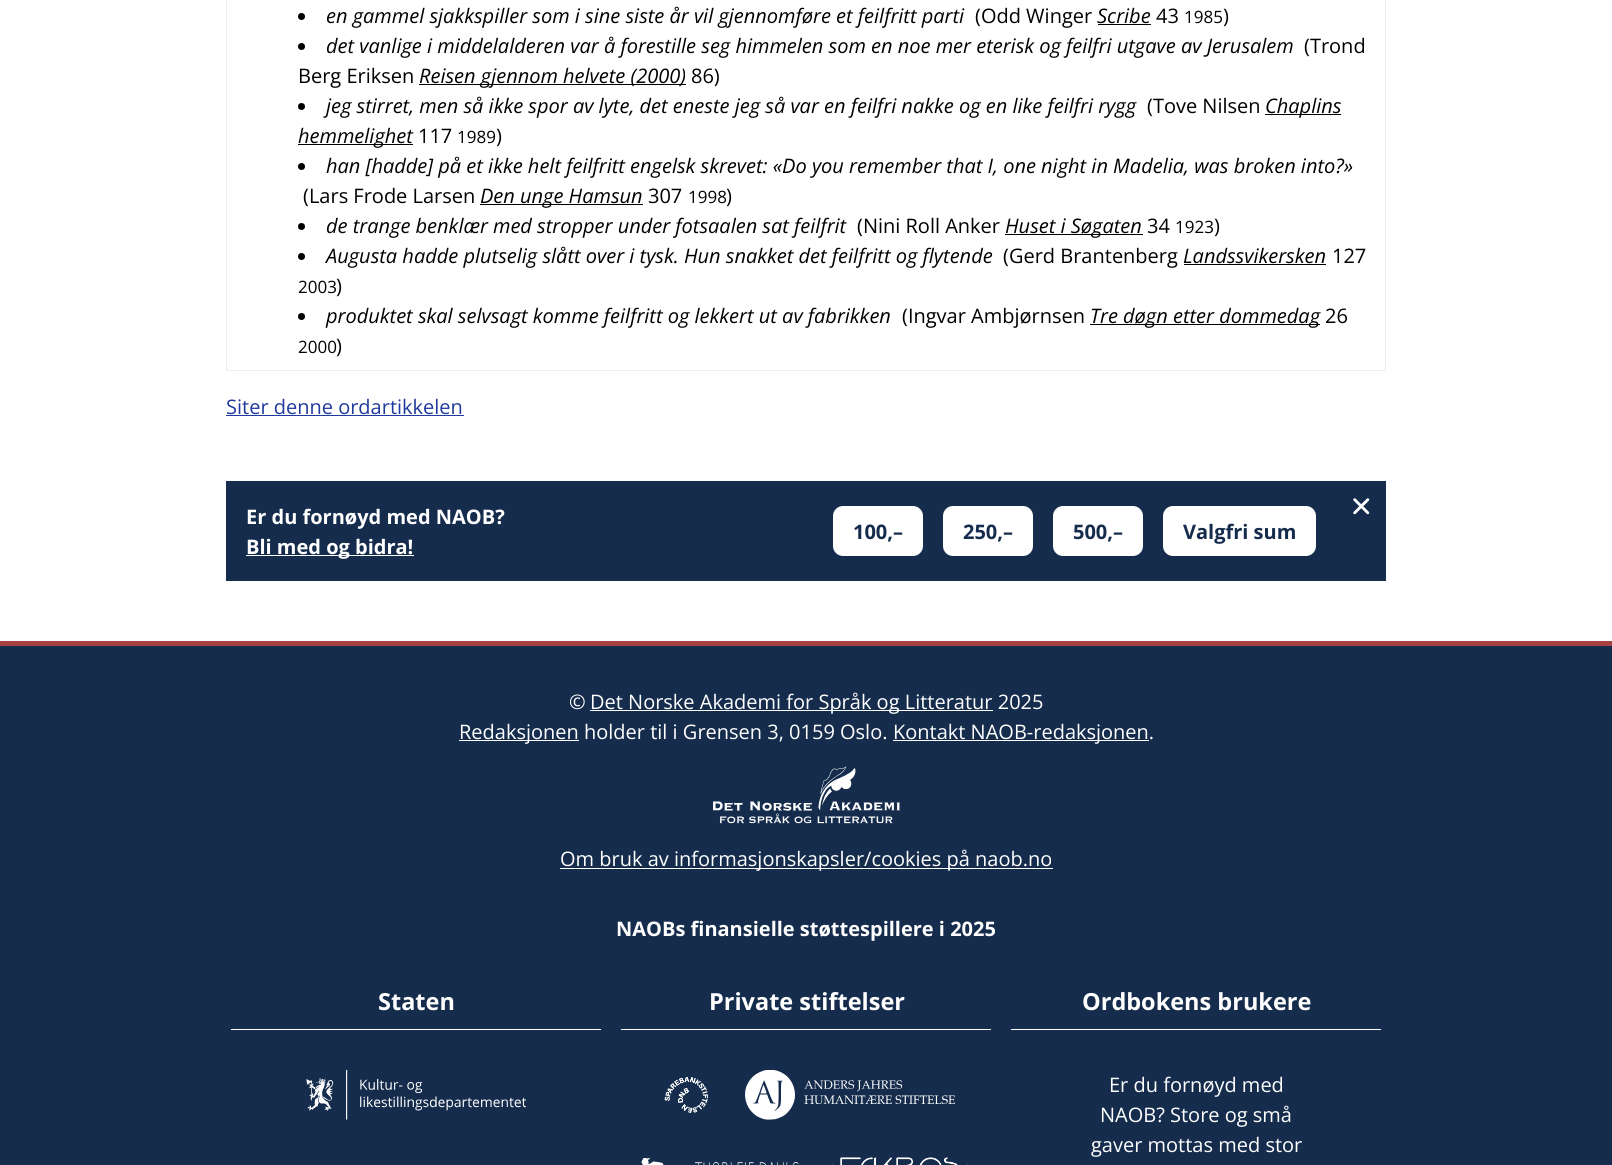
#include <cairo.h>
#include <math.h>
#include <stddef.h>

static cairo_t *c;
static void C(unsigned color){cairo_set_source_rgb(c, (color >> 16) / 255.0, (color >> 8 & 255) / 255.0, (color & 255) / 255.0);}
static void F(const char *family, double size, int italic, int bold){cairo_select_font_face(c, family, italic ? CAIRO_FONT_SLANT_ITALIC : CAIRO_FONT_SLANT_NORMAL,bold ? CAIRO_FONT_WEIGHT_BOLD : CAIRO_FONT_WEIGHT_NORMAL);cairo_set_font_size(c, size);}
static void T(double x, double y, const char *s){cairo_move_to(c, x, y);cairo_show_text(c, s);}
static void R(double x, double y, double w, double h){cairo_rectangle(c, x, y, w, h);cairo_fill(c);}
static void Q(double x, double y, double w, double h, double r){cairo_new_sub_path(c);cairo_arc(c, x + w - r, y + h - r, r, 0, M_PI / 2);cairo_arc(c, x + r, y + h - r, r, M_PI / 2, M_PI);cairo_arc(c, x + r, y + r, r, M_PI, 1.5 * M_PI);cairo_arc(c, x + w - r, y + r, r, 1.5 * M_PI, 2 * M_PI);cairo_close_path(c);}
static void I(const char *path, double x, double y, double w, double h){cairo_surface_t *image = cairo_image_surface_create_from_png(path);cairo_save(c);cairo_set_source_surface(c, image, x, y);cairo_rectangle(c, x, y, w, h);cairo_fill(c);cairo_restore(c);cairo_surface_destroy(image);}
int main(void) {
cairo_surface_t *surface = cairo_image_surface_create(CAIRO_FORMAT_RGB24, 1612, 1165);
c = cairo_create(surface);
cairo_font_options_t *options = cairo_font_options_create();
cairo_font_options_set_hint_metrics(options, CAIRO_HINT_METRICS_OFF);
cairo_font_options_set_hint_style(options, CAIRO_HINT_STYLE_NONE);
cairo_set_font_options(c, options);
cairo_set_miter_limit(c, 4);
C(0xffffff);
cairo_paint(c);
cairo_rectangle(c,226.5,-.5,1159,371);
C(0xeeeeee);
cairo_set_line_width(c,1);
cairo_stroke(c);
C(0x000000);
cairo_arc(c,301.5,16.5,3.5,0,2 * M_PI);
cairo_fill(c);
F("Open Sans",20,1,0);
T(326,23,"en gammel sjakkspiller som i sine siste år vil gjennomføre et feilfritt parti");
F("Open Sans",20,0,0);
T(975,23,"(Odd Winger");
F("Open Sans",20,1,0);
T(1097,23,"Scribe");
R(1098,24,53,1);
F("Open Sans",20,0,0);
T(1156,23,"43");
F("Open Sans",17,0,0);
T(1184,23,"1985");
F("Open Sans",20,0,0);
T(1223,23,")");
cairo_new_path(c);
cairo_arc(c,301.5,46.5,3.5,0,2 * M_PI);
cairo_fill(c);
F("Open Sans",20,1,0);
T(326,53,"det vanlige i middelalderen var å forestille seg himmelen som en noe mer eterisk og feilfri utgave av Jerusalem");
F("Open Sans",20,0,0);
T(1304,53,"(Trond");
T(298,83,"Berg Eriksen");
R(419,84,267,1);
F("Open Sans",20,1,0);
T(419,83,"Reisen gjennom helvete (2000)");
F("Open Sans",20,0,0);
T(691,83,"86)");
cairo_new_path(c);
cairo_arc(c,301.5,106.5,3.5,0,2 * M_PI);
cairo_fill(c);
F("Open Sans",20,1,0);
T(326,113,"jeg stirret, men så ikke spor av lyte, det eneste jeg så var en feilfri nakke og en like feilfri rygg");
F("Open Sans",20,0,0);
T(1147,113,"(Tove Nilsen");
R(1265,114,76,1);
F("Open Sans",20,1,0);
T(1265,113,"Chaplins");
R(298,144,115,1);
T(298,143,"hemmelighet");
F("Open Sans",20,0,0);
T(418,143,"117");
F("Open Sans",17,0,0);
T(457,143,"1989");
F("Open Sans",20,0,0);
T(496,143,")");
cairo_new_path(c);
cairo_arc(c,301.5,166.5,3.5,0,2 * M_PI);
cairo_fill(c);
F("Open Sans",20,1,0);
T(326,173,"han [hadde] på et ikke helt feilfritt engelsk skrevet: «Do you remember that I, one night in Madelia, was broken into?»");
F("Open Sans",20,0,0);
T(303,203,"(Lars Frode Larsen");
R(480,204,163,1);
F("Open Sans",20,1,0);
T(480,203,"Den unge Hamsun");
F("Open Sans",20,0,0);
T(648,203,"307");
F("Open Sans",17,0,0);
T(688,203,"1998");
F("Open Sans",20,0,0);
T(726,203,")");
cairo_new_path(c);
cairo_arc(c,301.5,226.5,3.5,0,2 * M_PI);
cairo_fill(c);
F("Open Sans",20,1,0);
T(326,233,"de trange benklær med stropper under fotsaalen sat feilfrit");
F("Open Sans",20,0,0);
T(857,233,"(Nini Roll Anker");
R(1005,234,138,1);
F("Open Sans",20,1,0);
T(1005,233,"Huset i Søgaten");
F("Open Sans",20,0,0);
T(1147,233,"34");
F("Open Sans",17,0,0);
T(1175,233,"1923");
F("Open Sans",20,0,0);
T(1214,233,")");
cairo_new_path(c);
cairo_arc(c,301.5,256.5,3.5,0,2 * M_PI);
cairo_fill(c);
F("Open Sans",20,1,0);
T(326,263,"Augusta hadde plutselig slått over i tysk. Hun snakket det feilfritt og flytende");
F("Open Sans",20,0,0);
T(1003,263,"(Gerd Brantenberg");
F("Open Sans",20,1,0);
T(1183,263,"Landssvikersken");
R(1184,264,142,1);
F("Open Sans",20,0,0);
T(1332,263,"127");
F("Open Sans",17,0,0);
T(298,293,"2003");
F("Open Sans",20,0,0);
T(336,293,")");
cairo_new_path(c);
cairo_arc(c,301.5,316.5,3.5,0,2 * M_PI);
cairo_fill(c);
F("Open Sans",20,1,0);
T(326,323,"produktet skal selvsagt komme feilfritt og lekkert ut av fabrikken");
F("Open Sans",20,0,0);
T(902,323,"(Ingvar Ambjørnsen");
R(1090,324,230,1);
F("Open Sans",20,1,0);
T(1090,323,"Tre døgn etter dommedag");
F("Open Sans",20,0,0);
T(1325,323,"26");
F("Open Sans",17,0,0);
T(298,353,"2000");
F("Open Sans",20,0,0);
T(336,353,")");
C(0x20399d);
T(226,414,"Siter denne ordartikkelen");
R(226,415,238,1);
C(0x152c4c);
R(226,481,1160,100);
F("Open Sans",20,0,1);
C(0xffffff);
T(246,524,"Er du fornøyd med NAOB?");
R(246,555,168,1);
T(246,554,"Bli med og bidra!");
Q(833,506,90,50,10);
cairo_fill(c);
C(0x152c4c);
T(853,539,"100,–");
C(0xffffff);
Q(943,506,90,50,10);
cairo_fill(c);
C(0x152c4c);
T(963,539,"250,–");
C(0xffffff);
Q(1053,506,90,50,10);
cairo_fill(c);
C(0x152c4c);
T(1073,539,"500,–");
C(0xffffff);
Q(1163,506,153,50,10);
cairo_fill(c);
C(0x152c4c);
T(1183,539,"Valgfri sum");
I("1.png",1353,498,17,17);
R(0,646,1612,519);
C(0xa54242);
R(0,641,1612,5);
F("Open Sans",20,0,0);
C(0xffffff);
T(569,709,"©");
R(590,710,403,1);
T(590,709,"Det Norske Akademi for Språk og Litteratur 2025");
R(459,740,120,1);
T(459,739,"Redaksjonen holder til i Grensen 3, 0159 Oslo.");
R(893,740,256,1);
T(893,739,"Kontakt NAOB-redaksjonen.");
I("2.png",713,766,187,58);
R(560,868,493,1);
T(560,866,"Om bruk av informasjonskapsler/cookies på naob.no");
F("Open Sans",20,0,1);
T(616,936,"NAOBs finansielle støttespillere i 2025");
R(231,1029,370,1);
F("Open Sans",23.5,0,1);
T(378,1010,"Staten");
I("3.png",306,1070,220,50);
R(621,1029,370,1);
T(709,1010,"Private stiftelser");
I("4.png",664,1077,44,36);
I("5.png",745,1070,210,50);
I("6.png",641,1158,158,7);
I("7.png",831,1157,138,8);
R(1011,1029,370,1);
T(1082,1010,"Ordbokens brukere");
F("Open Sans",20,0,0);
T(1109,1092,"Er du fornøyd med");
T(1100,1122,"NAOB? Store og små");
T(1091,1152,"gaver mottas med stor");
cairo_surface_write_to_png(surface, "o.png");
cairo_font_options_destroy(options);
cairo_destroy(c);
cairo_surface_destroy(surface);
return 0;
}
